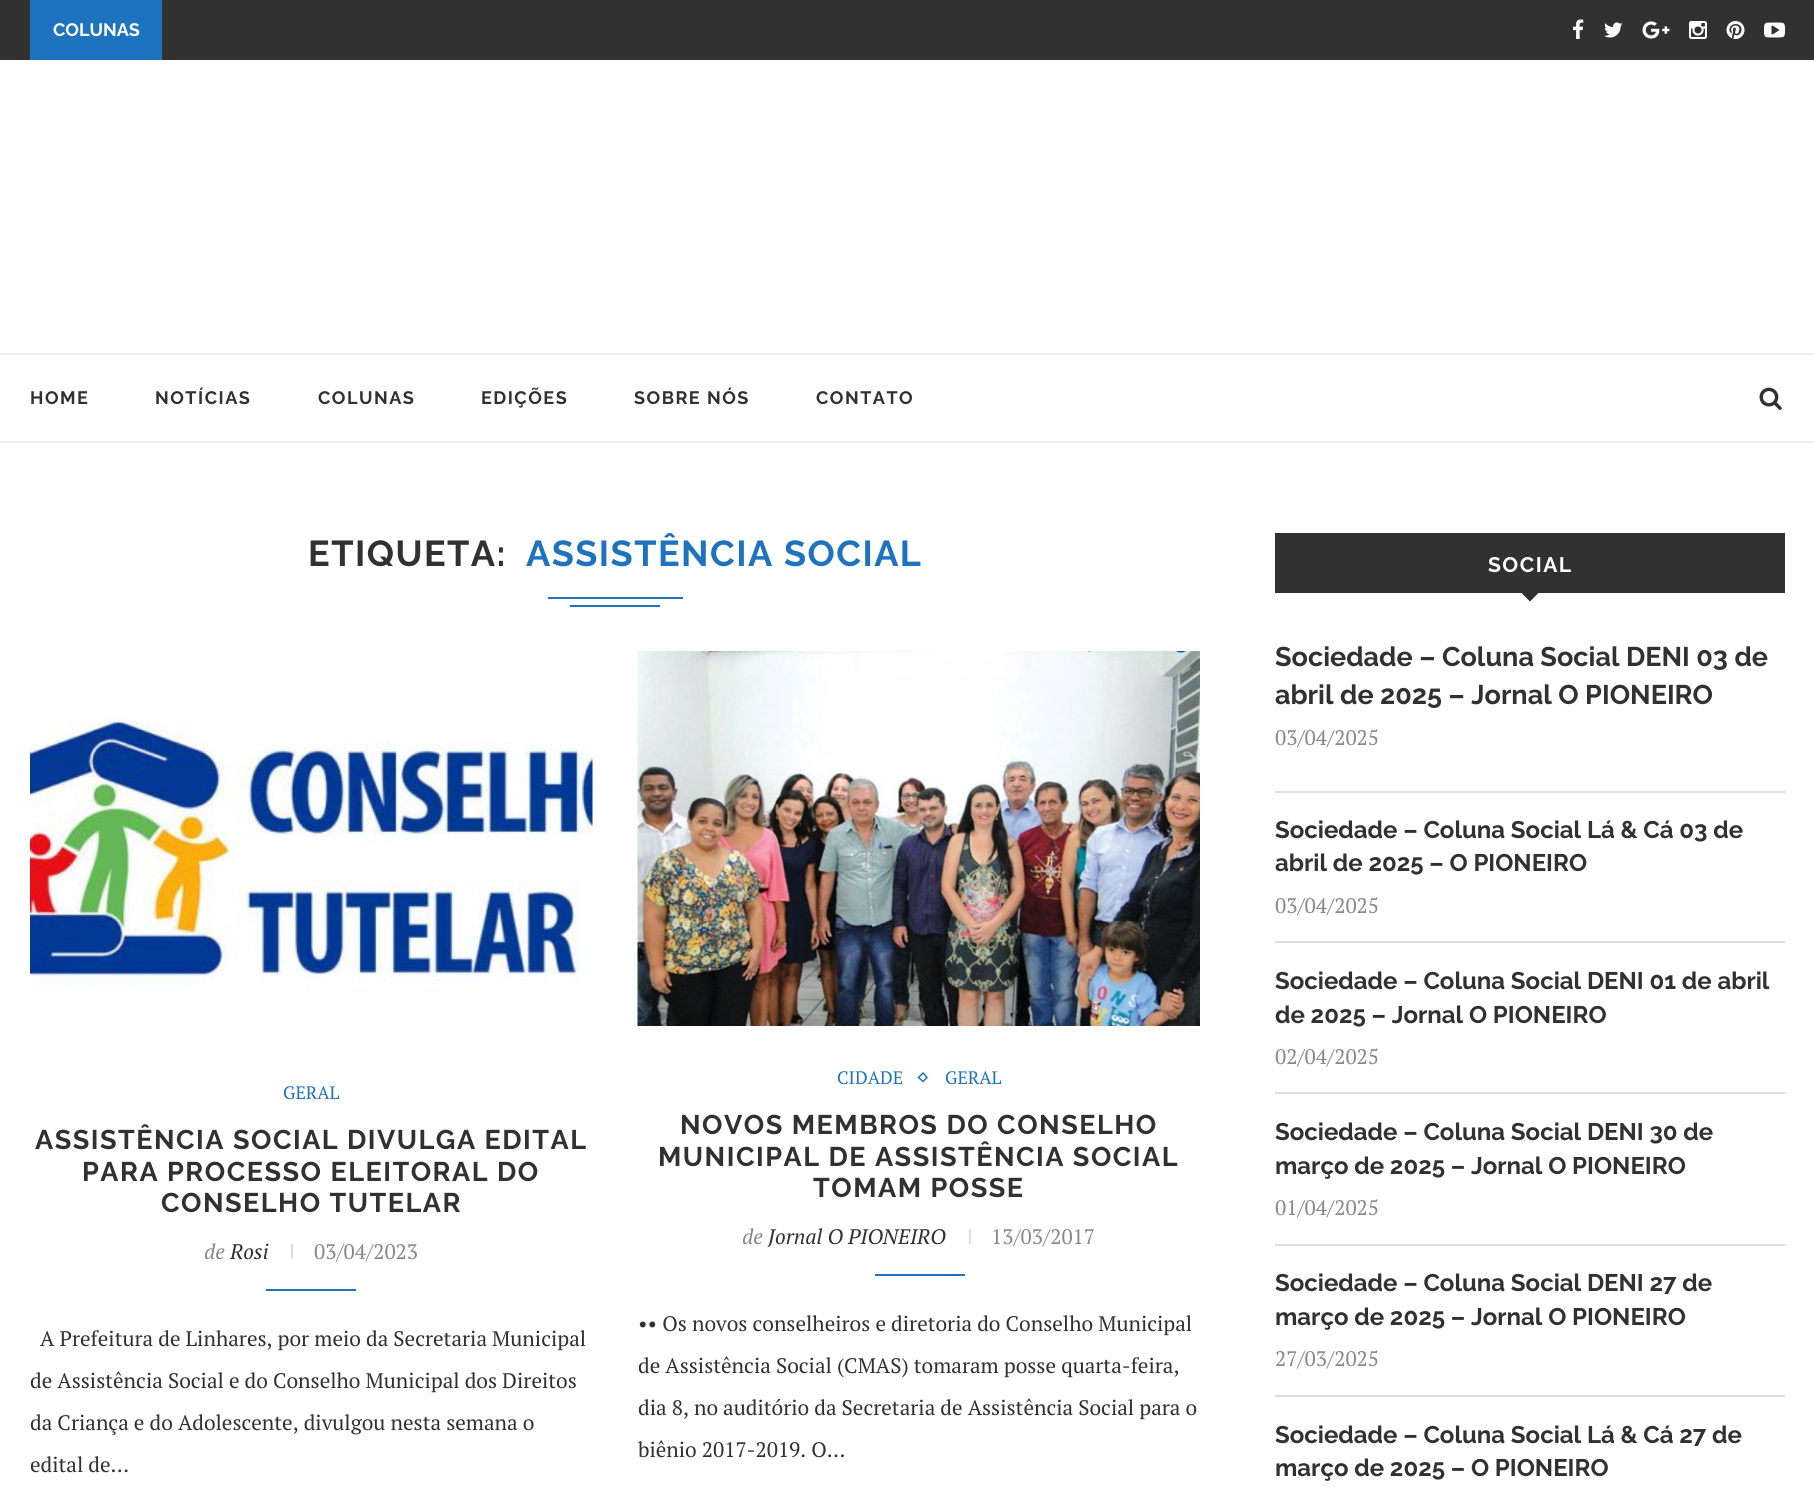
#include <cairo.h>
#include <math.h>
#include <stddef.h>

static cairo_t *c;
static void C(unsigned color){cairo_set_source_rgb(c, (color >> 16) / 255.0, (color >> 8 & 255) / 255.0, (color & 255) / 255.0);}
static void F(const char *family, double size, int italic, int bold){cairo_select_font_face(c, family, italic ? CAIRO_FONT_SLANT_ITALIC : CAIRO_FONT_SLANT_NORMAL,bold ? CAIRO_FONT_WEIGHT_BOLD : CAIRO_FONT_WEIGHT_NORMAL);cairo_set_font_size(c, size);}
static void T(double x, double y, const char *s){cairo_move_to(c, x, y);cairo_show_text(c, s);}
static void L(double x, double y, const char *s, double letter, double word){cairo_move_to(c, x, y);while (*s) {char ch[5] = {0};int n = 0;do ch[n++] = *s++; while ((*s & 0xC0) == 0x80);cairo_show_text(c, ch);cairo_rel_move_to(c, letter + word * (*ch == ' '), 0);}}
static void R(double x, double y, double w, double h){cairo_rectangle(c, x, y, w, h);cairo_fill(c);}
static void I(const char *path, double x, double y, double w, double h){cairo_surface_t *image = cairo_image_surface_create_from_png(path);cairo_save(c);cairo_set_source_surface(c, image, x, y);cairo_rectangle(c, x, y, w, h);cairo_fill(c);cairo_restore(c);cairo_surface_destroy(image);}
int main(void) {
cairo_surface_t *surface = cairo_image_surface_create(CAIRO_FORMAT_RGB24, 1814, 1487);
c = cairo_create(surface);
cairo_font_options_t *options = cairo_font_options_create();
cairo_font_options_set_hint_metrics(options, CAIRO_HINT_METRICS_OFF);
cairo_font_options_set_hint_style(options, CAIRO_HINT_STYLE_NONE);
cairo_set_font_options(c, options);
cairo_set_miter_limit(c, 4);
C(0xffffff);
cairo_paint(c);
C(0x313131);
R(0,0,1814,60);
C(0x1e73be);
R(30,0,132,60);
F("Raleway",18,0,1);
C(0xffffff);
T(53,36,"COLUNAS");
I("1.png",1573,19,11,20);
I("2.png",1604,22,19,16);
I("3.png",1642,21,28,18);
I("4.png",1689,21,18,18);
I("5.png",1726,21,19,18);
I("6.png",1764,22,21,16);
C(0xececec);
R(0,353,1814,2);
R(0,441,1814,2);
C(0x313131);
L(30,404,"HOME",1.5,0);
L(155,404,"NOTÍCIAS",1.5,0);
L(318,404,"COLUNAS",1.5,0);
L(481,404,"EDIÇÕES",1.5,0);
L(634,404,"SOBRE NÓS",1.5,0);
L(816,404,"CONTATO",1.5,0);
I("7.png",1759,387,23,23);
F("Raleway",36,0,1);
L(308,566,"ETIQUETA:",1.5,0);
C(0x1e73be);
L(526,566,"ASSISTÊNCIA SOCIAL",1.5,0);
R(548,597,135,2);
R(570,605,90,2);
I("8.png",30,719,563,276);
F("PT Serif",18,0,0);
T(283,1099,"GERAL");
F("Raleway",27,0,1);
C(0x313131);
L(35,1149,"ASSISTÊNCIA SOCIAL DIVULGA EDITAL",1.5,0);
L(82,1181,"PARA PROCESSO ELEITORAL DO",1.5,0);
L(161,1212,"CONSELHO TUTELAR",1.5,0);
F("PT Serif",21,1,0);
C(0x888888);
T(204,1259,"de");
C(0x313131);
T(230,1259,"Rosi");
C(0xdedede);
R(291,1244,2,15);
F("PT Serif",21,0,0);
C(0x888888);
T(314,1259,"03/04/2023");
C(0x1e73be);
R(266,1289,90,2);
C(0x313131);
T(40,1346,"A Prefeitura de Linhares, por meio da Secretaria Municipal");
T(30,1388,"de Assistência Social e do Conselho Municipal dos Direitos");
T(30,1430,"da Criança e do Adolescente, divulgou nesta semana o");
T(30,1472,"edital de…");
I("9.png",637,651,563,375);
F("PT Serif",18,0,0);
C(0x1e73be);
T(837,1084,"CIDADE");
cairo_new_path(c);
cairo_move_to(c,923,1073);
cairo_line_to(c,927,1077.5);
cairo_line_to(c,923,1081.5);
cairo_line_to(c,918.5,1077.5);
cairo_close_path(c);
cairo_set_line_width(c,1.5);
cairo_stroke(c);
T(945,1084,"GERAL");
F("Raleway",27,0,1);
C(0x313131);
L(680,1134,"NOVOS MEMBROS DO CONSELHO",1.5,0);
L(658,1166,"MUNICIPAL DE ASSISTÊNCIA SOCIAL",1.5,0);
L(813,1197,"TOMAM POSSE",1.5,0);
F("PT Serif",21,1,0);
C(0x888888);
T(742,1244,"de");
C(0x313131);
T(768,1244,"Jornal O PIONEIRO");
C(0xdedede);
R(969,1229,2,15);
F("PT Serif",21,0,0);
C(0x888888);
T(991,1244,"13/03/2017");
C(0x1e73be);
R(875,1274,90,2);
C(0x313131);
T(638,1331,"•• Os novos conselheiros e diretoria do Conselho Municipal");
T(638,1373,"de Assistência Social (CMAS) tomaram posse quarta-feira,");
T(638,1415,"dia 8, no auditório da Secretaria de Assistência Social para o");
T(638,1457,"biênio 2017-2019. O…");
R(1275,533,510,60);
F("Raleway",21,0,1);
C(0xffffff);
L(1488,572,"SOCIAL",1.5,0);
C(0x313131);
cairo_new_path(c);
cairo_move_to(c,1521,592.5);
cairo_line_to(c,1539,592.5);
cairo_line_to(c,1530,601.5);
cairo_close_path(c);
cairo_fill(c);
C(0xdedede);
R(1275,791,510,2);
F("Raleway",27,0,1);
C(0x313131);
T(1275,666,"Sociedade – Coluna Social DENI 03 de");
T(1275,704,"abril de 2025 – Jornal O PIONEIRO");
F("PT Serif",21,0,0);
C(0x888888);
T(1275,745,"03/04/2025");
C(0xdedede);
R(1275,941,510,2);
F("Raleway",24,0,1);
C(0x313131);
T(1275,838,"Sociedade – Coluna Social Lá & Cá 03 de");
T(1275,871,"abril de 2025 – O PIONEIRO");
F("PT Serif",21,0,0);
C(0x888888);
T(1275,913,"03/04/2025");
C(0xdedede);
R(1275,1092,510,2);
F("Raleway",24,0,1);
C(0x313131);
T(1275,989,"Sociedade – Coluna Social DENI 01 de abril");
T(1275,1023,"de 2025 – Jornal O PIONEIRO");
F("PT Serif",21,0,0);
C(0x888888);
T(1275,1064,"02/04/2025");
C(0xdedede);
R(1275,1244,510,2);
F("Raleway",24,0,1);
C(0x313131);
T(1275,1140,"Sociedade – Coluna Social DENI 30 de");
T(1275,1174,"março de 2025 – Jornal O PIONEIRO");
F("PT Serif",21,0,0);
C(0x888888);
T(1275,1215,"01/04/2025");
C(0xdedede);
R(1275,1395,510,2);
F("Raleway",24,0,1);
C(0x313131);
T(1275,1291,"Sociedade – Coluna Social DENI 27 de");
T(1275,1325,"março de 2025 – Jornal O PIONEIRO");
F("PT Serif",21,0,0);
C(0x888888);
T(1275,1366,"27/03/2025");
F("Raleway",24,0,1);
C(0x313131);
T(1275,1443,"Sociedade – Coluna Social Lá & Cá 27 de");
T(1275,1476,"março de 2025 – O PIONEIRO");
cairo_surface_write_to_png(surface, "o.png");
cairo_font_options_destroy(options);
cairo_destroy(c);
cairo_surface_destroy(surface);
return 0;
}
